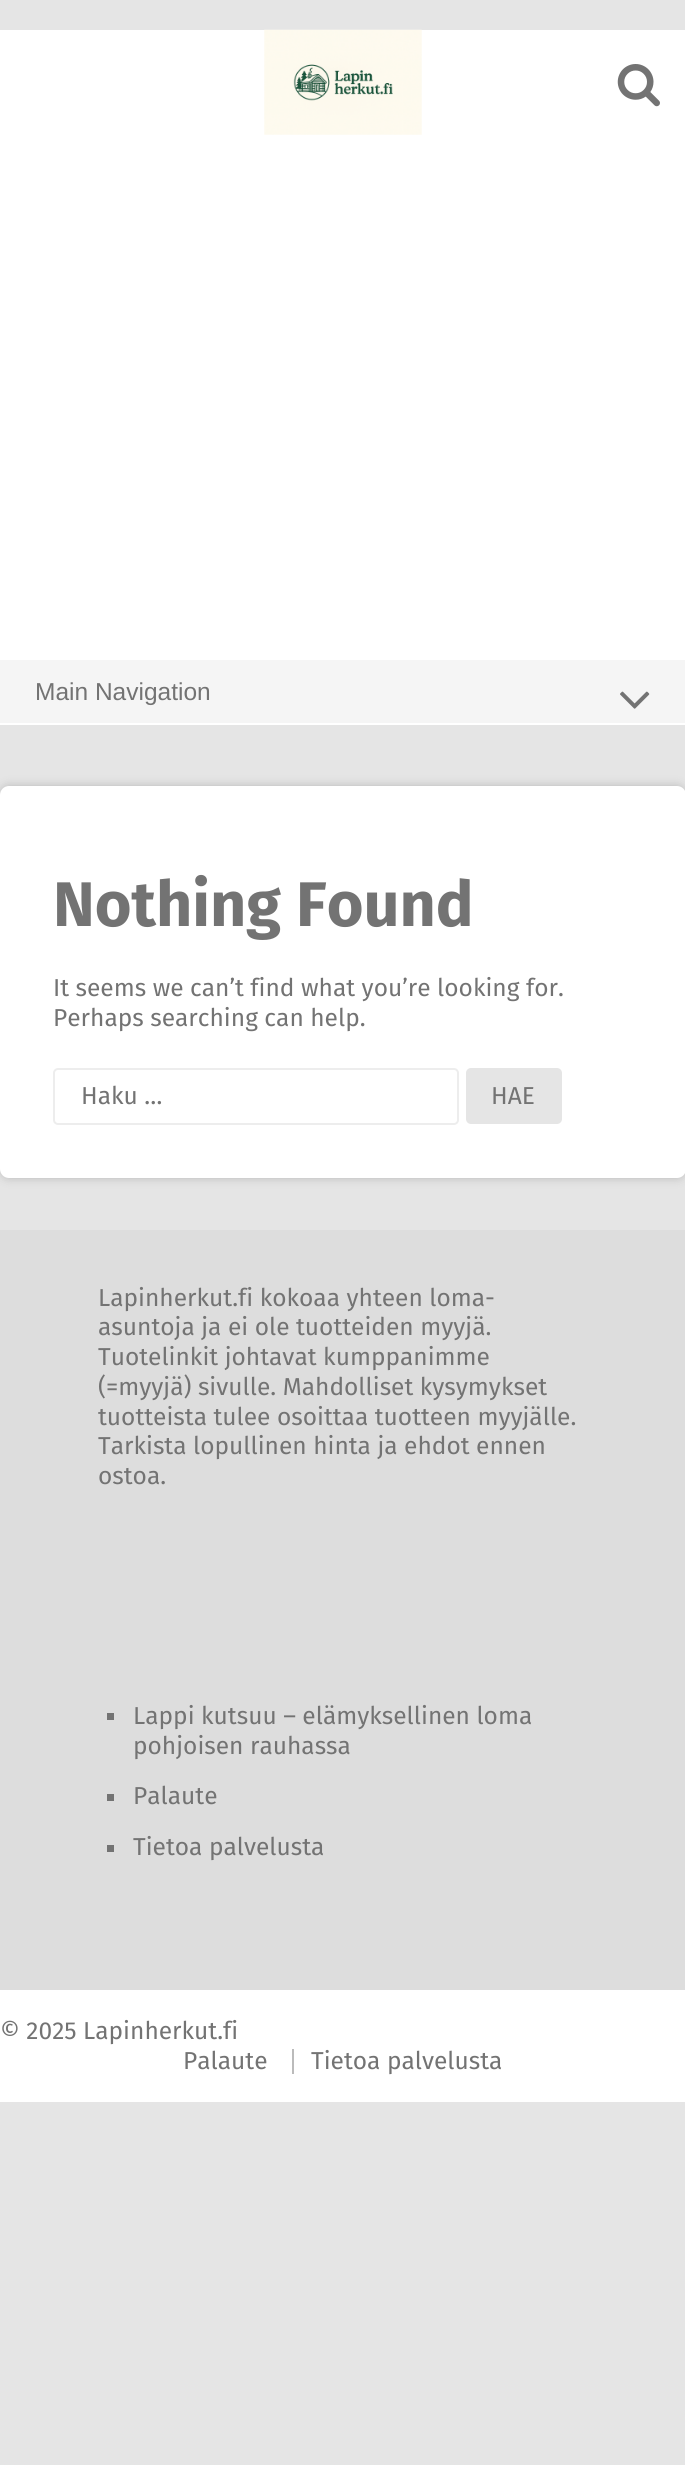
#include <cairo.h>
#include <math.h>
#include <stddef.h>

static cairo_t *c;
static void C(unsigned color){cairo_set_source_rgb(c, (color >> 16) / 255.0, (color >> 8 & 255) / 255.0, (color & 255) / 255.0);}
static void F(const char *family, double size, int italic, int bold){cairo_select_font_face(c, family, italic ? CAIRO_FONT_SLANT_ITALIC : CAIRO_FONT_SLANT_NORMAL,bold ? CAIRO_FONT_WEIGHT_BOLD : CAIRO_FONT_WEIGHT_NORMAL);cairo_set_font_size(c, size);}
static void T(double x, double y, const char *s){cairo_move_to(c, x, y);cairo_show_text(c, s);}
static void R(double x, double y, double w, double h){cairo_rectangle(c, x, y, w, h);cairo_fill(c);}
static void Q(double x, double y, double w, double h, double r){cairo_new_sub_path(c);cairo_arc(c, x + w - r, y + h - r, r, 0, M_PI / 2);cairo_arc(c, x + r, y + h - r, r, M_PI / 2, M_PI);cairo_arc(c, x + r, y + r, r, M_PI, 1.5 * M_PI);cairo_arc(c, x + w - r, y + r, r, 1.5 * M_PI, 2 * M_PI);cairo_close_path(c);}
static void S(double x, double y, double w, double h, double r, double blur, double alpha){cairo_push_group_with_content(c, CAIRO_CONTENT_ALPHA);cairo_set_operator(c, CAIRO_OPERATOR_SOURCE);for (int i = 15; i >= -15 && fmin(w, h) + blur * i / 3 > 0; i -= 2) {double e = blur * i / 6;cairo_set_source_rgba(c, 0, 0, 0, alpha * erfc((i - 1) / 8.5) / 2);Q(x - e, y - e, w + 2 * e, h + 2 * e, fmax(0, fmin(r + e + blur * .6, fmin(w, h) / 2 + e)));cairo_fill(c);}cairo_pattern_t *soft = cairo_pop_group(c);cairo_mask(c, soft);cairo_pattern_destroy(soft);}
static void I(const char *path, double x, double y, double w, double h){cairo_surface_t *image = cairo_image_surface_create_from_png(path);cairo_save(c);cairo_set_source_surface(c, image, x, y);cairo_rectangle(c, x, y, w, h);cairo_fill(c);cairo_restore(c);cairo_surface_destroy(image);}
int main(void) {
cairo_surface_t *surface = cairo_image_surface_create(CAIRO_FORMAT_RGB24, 685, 2465);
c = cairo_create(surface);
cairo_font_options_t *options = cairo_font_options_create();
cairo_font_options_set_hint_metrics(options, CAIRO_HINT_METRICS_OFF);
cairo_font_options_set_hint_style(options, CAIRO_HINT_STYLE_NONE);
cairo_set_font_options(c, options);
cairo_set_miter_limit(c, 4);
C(0xe5e5e5);
cairo_paint(c);
C(0xffffff);
R(0,30,685,630);
I("1.png",264,29,158,106);
I("2.png",617,64,43,43);
C(0xf5f5f5);
R(0,660,685,63);
C(0xffffff);
R(0,723,685,2);
F("Liberation Sans",24.5,0,0);
C(0x737373);
T(35,700,"Main Navigation");
I("3.png",620,691,30,18);
C(0x000000);
S(0,786,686,392,9,5,.2);
C(0xffffff);
Q(0,786,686,392,9);
cairo_fill(c);
F("Fira Sans",63,0,1);
C(0x737373);
T(53,926,"Nothing Found");
F("Fira Sans",24.5,0,0);
T(53,996,"It seems we can’t find what you’re looking for.");
T(53,1026,"Perhaps searching can help.");
Q(54,1069,404,55,4);
C(0xededed);
cairo_stroke(c);
C(0x737373);
T(81,1104,"Haku …");
C(0xe5e5e5);
Q(466,1068,96,56,5);
cairo_fill(c);
C(0x737373);
T(491,1104,"HAE");
C(0xdddddd);
R(0,1230,685,760);
C(0x737373);
T(98,1306,"Lapinherkut.fi kokoaa yhteen loma-");
T(98,1335,"asuntoja ja ei ole tuotteiden myyjä.");
T(98,1365,"Tuotelinkit johtavat kumppanimme");
T(98,1395,"(=myyjä) sivulle. Mahdolliset kysymykset");
T(98,1425,"tuotteista tulee osoittaa tuotteen myyjälle.");
T(98,1454,"Tarkista lopullinen hinta ja ehdot ennen");
T(98,1484,"ostoa.");
R(107,1713,7,7);
T(133,1724,"Lappi kutsuu – elämyksellinen loma");
T(133,1754,"pohjoisen rauhassa");
R(107,1794,7,7);
T(133,1804,"Palaute");
R(107,1845,7,7);
T(133,1855,"Tietoa palvelusta");
C(0xffffff);
R(0,1990,685,112);
C(0x737373);
T(0,2039,"© 2025 Lapinherkut.fi");
T(183,2069,"Palaute");
C(0xbbbbbb);
R(292,2049,2,25);
C(0x737373);
T(311,2069,"Tietoa palvelusta");
cairo_surface_write_to_png(surface, "o.png");
cairo_font_options_destroy(options);
cairo_destroy(c);
cairo_surface_destroy(surface);
return 0;
}
